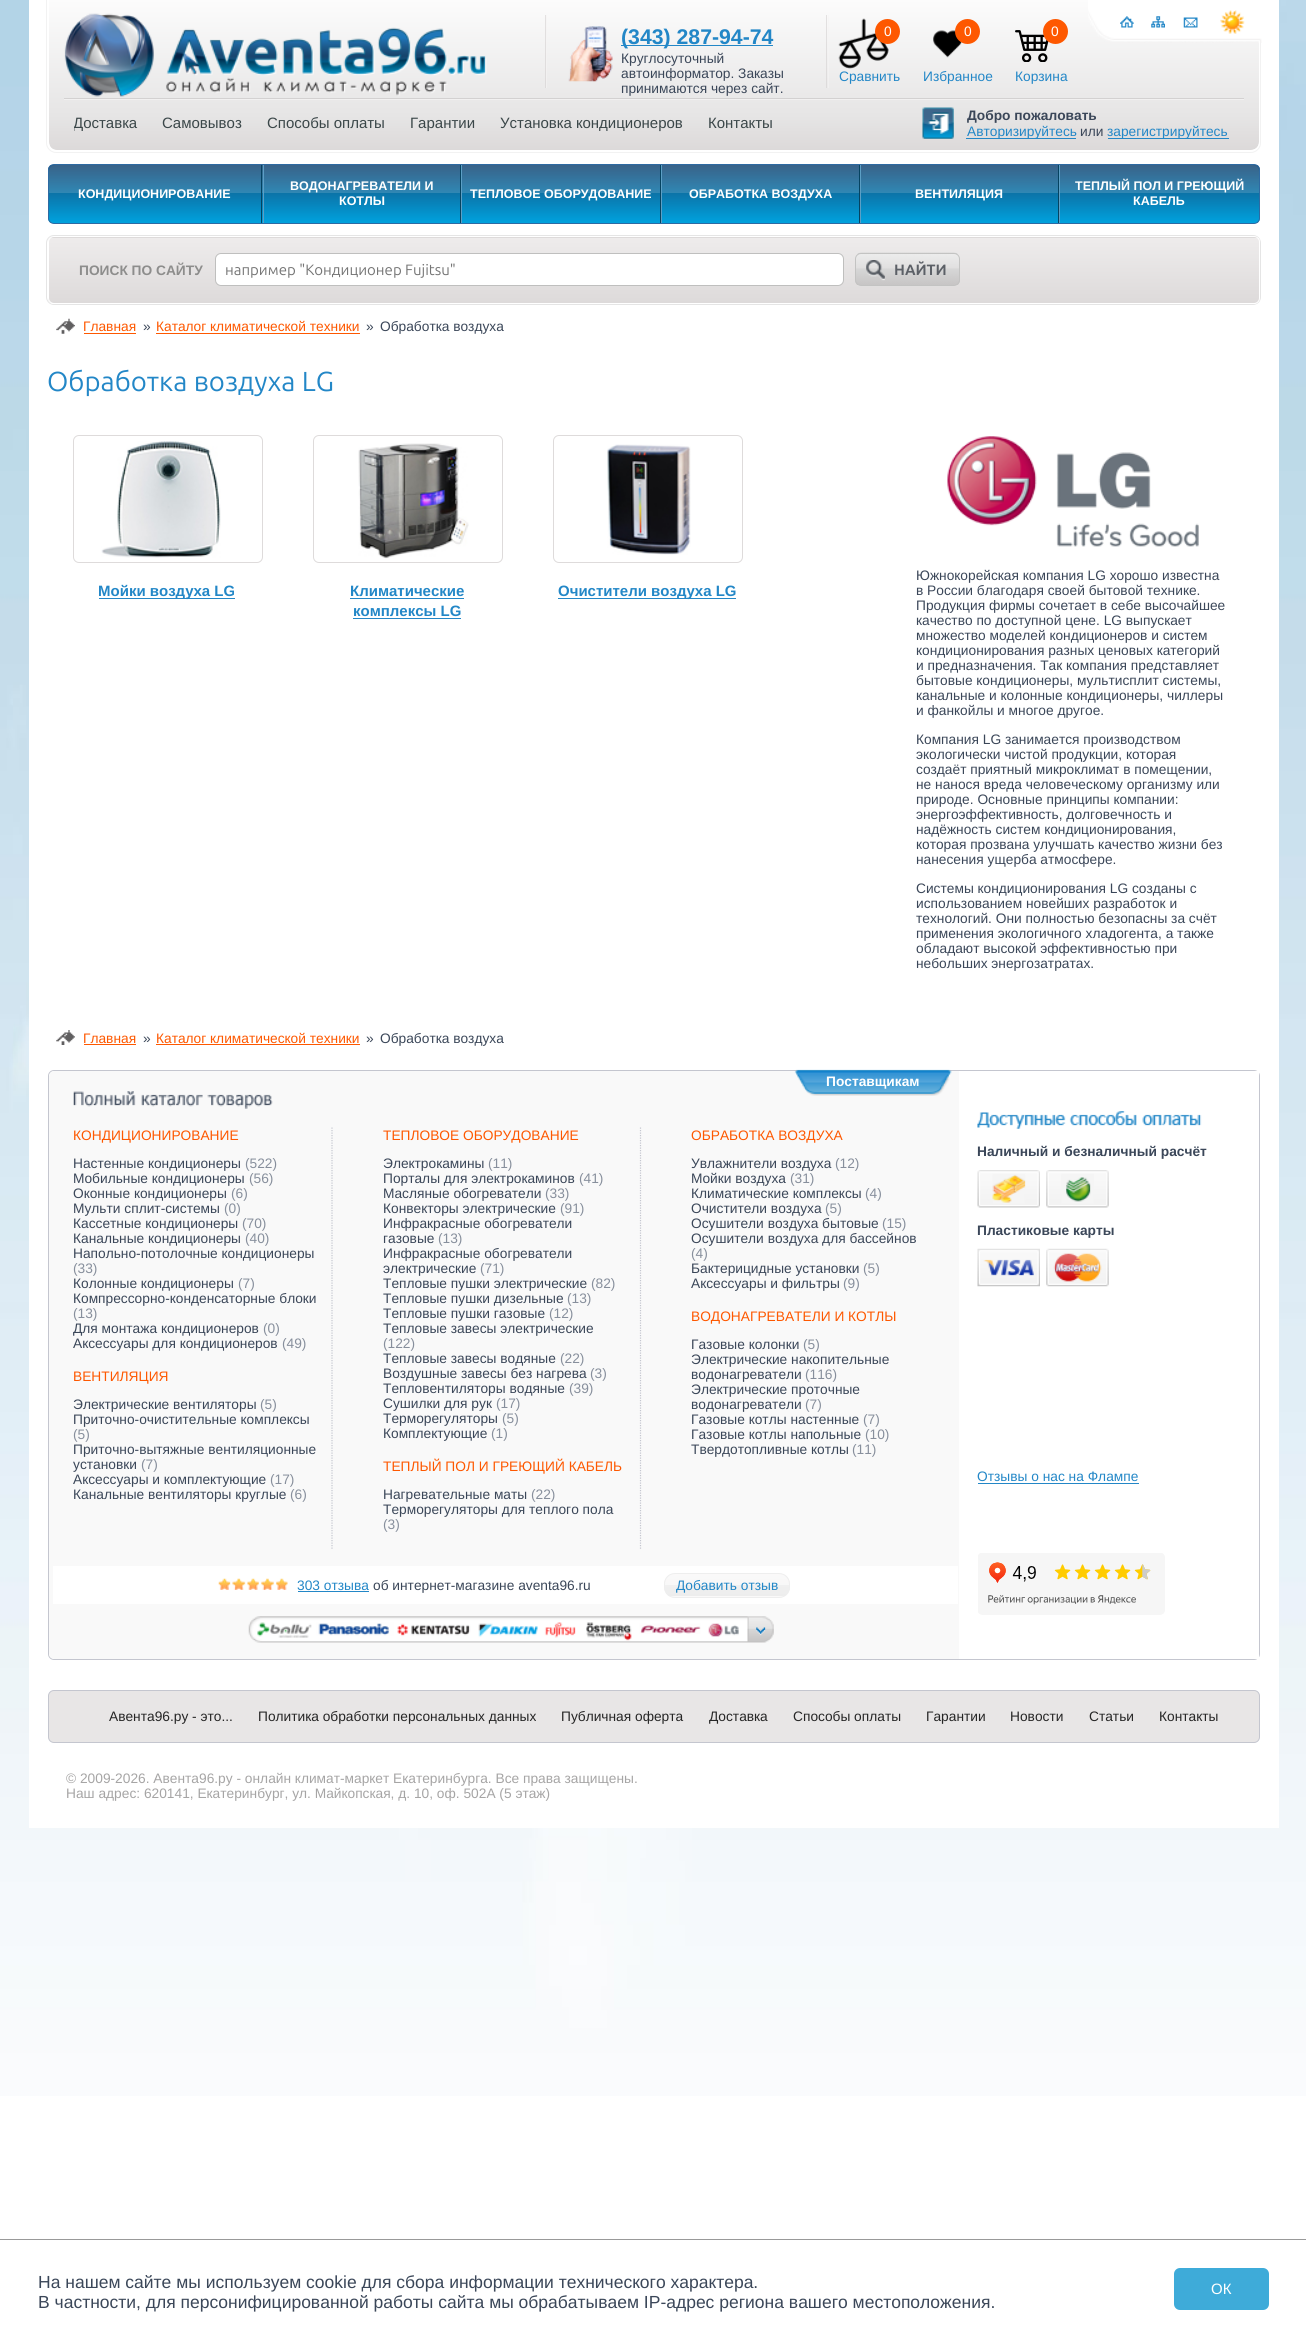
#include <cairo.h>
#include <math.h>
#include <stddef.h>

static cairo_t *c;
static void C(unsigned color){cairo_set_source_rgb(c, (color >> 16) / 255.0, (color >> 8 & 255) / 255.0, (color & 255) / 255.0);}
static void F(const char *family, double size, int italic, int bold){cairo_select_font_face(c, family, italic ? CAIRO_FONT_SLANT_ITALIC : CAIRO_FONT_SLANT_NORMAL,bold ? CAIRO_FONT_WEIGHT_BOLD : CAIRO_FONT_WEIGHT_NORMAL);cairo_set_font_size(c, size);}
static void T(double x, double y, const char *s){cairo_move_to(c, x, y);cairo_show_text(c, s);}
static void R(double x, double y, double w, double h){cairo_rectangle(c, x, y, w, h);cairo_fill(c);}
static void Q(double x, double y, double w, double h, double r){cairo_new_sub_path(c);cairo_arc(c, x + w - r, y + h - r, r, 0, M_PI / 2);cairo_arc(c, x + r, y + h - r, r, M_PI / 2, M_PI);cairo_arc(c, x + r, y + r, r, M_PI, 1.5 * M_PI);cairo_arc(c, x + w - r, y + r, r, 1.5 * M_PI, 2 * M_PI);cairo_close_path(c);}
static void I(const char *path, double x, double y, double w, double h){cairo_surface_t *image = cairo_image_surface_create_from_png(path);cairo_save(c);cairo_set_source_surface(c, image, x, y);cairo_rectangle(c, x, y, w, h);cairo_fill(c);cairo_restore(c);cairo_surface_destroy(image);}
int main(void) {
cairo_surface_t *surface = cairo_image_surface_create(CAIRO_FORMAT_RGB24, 1306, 2342);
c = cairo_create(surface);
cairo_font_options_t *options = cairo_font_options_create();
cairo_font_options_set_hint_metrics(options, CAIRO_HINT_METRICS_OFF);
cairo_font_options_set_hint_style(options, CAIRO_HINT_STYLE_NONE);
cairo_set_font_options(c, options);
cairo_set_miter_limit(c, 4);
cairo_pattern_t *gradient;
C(0xffffff);
cairo_paint(c);
I("1.png",0,0,1306,2096);
C(0xffffff);
R(29,0,1250,1828);
cairo_new_path(c);
cairo_move_to(c,46.5,-.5);
cairo_line_to(c,1260.5,-.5);
cairo_line_to(c,1260.5,143);
cairo_curve_to(c,1260.5,148,1256,152.5,1251,152.5);
cairo_line_to(c,56,152.5);
cairo_curve_to(c,51,152.5,46.5,148,46.5,143);
cairo_close_path(c);
C(0xf2f2f2);
cairo_set_line_width(c,1);
cairo_stroke(c);
gradient = cairo_pattern_create_linear(49,0,49,150);
cairo_pattern_add_color_stop_rgba(gradient,0,0.988,0.988,0.988,1);
cairo_pattern_add_color_stop_rgba(gradient,.77,0.902,0.898,0.898,1);
cairo_pattern_add_color_stop_rgba(gradient,1,0.863,0.851,0.851,1);
cairo_set_source(c,gradient);
cairo_pattern_destroy(gradient);
cairo_new_path(c);
cairo_move_to(c,49,0);
cairo_line_to(c,1259,0);
cairo_line_to(c,1259,142);
cairo_curve_to(c,1259,146.5,1255.5,150,1251,150);
cairo_line_to(c,57,150);
cairo_curve_to(c,52.5,150,49,146.5,49,142);
cairo_close_path(c);
cairo_fill(c);
C(0xffffff);
cairo_set_fill_rule(c,CAIRO_FILL_RULE_EVEN_ODD);
cairo_new_path(c);
cairo_move_to(c,48,0);
cairo_line_to(c,1260,0);
cairo_line_to(c,1260,142);
cairo_curve_to(c,1260,147,1256,151,1251,151);
cairo_line_to(c,56,151);
cairo_curve_to(c,51,151,48,147,48,142);
cairo_close_path(c);
cairo_move_to(c,49,0);
cairo_line_to(c,1259,0);
cairo_line_to(c,1259,142);
cairo_curve_to(c,1259,147,1255,150,1251,150);
cairo_line_to(c,56,150);
cairo_curve_to(c,52,150,49,147,49,142);
cairo_close_path(c);
cairo_fill(c);
I("2.png",64,13,423,84);
cairo_set_source_rgba(c,0.961,0.957,0.957,0.6);
R(546,15,1,73);
cairo_set_source_rgba(c,0.827,0.82,0.82,0.6);
R(545,15,1,73);
I("3.png",568,26,45,56);
C(0x2387c7);
R(621,45,152,1);
F("Liberation Sans",21.25,0,1);
T(621,44,"(343) 287-94-74");
F("Liberation Sans",13.75,0,0);
C(0x3b4759);
T(621,63,"Круглосуточный");
T(621,78,"автоинформатор. Заказы");
T(621,93,"принимаются через сайт.");
cairo_set_source_rgba(c,0.961,0.957,0.957,0.6);
R(828,15,1,73);
cairo_set_source_rgba(c,0.827,0.82,0.82,0.6);
R(826,15,1,73);
I("4.png",838,18,51,51);
C(0xfe5800);
cairo_arc(c,887.5,31.5,12.5,0,2 * M_PI);
cairo_fill(c);
C(0xffffff);
T(884,36,"0");
C(0x2387c7);
T(839,81,"Сравнить");
I("5.png",933,30,29,28);
C(0xfe5800);
cairo_arc(c,967.5,31.5,12.5,0,2 * M_PI);
cairo_fill(c);
C(0xffffff);
T(964,36,"0");
C(0x2387c7);
T(923,81,"Избранное");
I("6.png",1015,30,34,32);
C(0xfe5800);
cairo_arc(c,1055.5,31.5,12.5,0,2 * M_PI);
cairo_fill(c);
C(0xffffff);
T(1051,36,"0");
C(0x2387c7);
T(1015,81,"Корзина");
I("7.png",1088,0,174,43);
I("8.png",1120,16,14,12);
I("9.png",1151,16,14,12);
I("10.png",1183,17,15,11);
I("11.png",1220,10,25,24);
C(0xd3d1d1);
R(64,98,1180,1);
C(0xf2f1f1);
R(64,99,1180,1);
cairo_save(c);
cairo_set_fill_rule(c,CAIRO_FILL_RULE_WINDING);
cairo_rectangle(c,74,103,1180,40);
cairo_clip(c);
F("Liberation Sans",15,0,0);
C(0x3b4749);
T(73,128,"Доставка");
cairo_restore(c);
F("Liberation Sans",15,0,0);
C(0x3b4749);
T(162,128,"Cамовывоз");
T(267,128,"Способы оплаты");
T(410,128,"Гарантии");
T(500,128,"Установка кондиционеров");
T(708,128,"Контакты");
I("12.png",922,107,32,32);
F("Liberation Sans",13.75,0,1);
C(0x3b4759);
T(967,120,"Добро пожаловать");
C(0x2387c7);
R(966,138,110,1);
F("Liberation Sans",13.75,0,0);
T(967,136,"Авторизируйтесь");
C(0x3b4759);
T(1080,136,"или");
C(0x2387c7);
R(1108,138,121,1);
T(1107,136,"зарегистрируйтесь");
cairo_save(c);
cairo_set_fill_rule(c,CAIRO_FILL_RULE_WINDING);
Q(48,164,1212,60,6);
cairo_clip(c);
gradient = cairo_pattern_create_linear(49,165,49,223);
cairo_pattern_add_color_stop_rgba(gradient,0,0.086,0.278,0.455,1);
cairo_pattern_add_color_stop_rgba(gradient,1,0,0.635,0.871,1);
cairo_set_source(c,gradient);
cairo_pattern_destroy(gradient);
R(48,165,1212,58);
cairo_restore(c);
Q(48.5,164.5,1211,59,5.5);
C(0x2e6aa2);
cairo_stroke(c);
cairo_set_source_rgba(c,1,1,1,0.15);
cairo_new_path(c);
cairo_move_to(c,55,165);
cairo_line_to(c,1253,165);
cairo_curve_to(c,1256.5,165,1259,167.5,1259,171);
cairo_line_to(c,1259,193);
cairo_line_to(c,49,193);
cairo_line_to(c,49,171);
cairo_curve_to(c,49,167.5,51.5,165,55,165);
cairo_close_path(c);
cairo_fill(c);
C(0x054361);
R(261,165,1,58);
F("Liberation Sans",12.5,0,1);
C(0xffffff);
T(78,198,"КОНДИЦИОНИРОВАНИЕ");
C(0x054361);
R(460,165,1,58);
C(0x5c9fc5);
R(263,165,1,58);
C(0xffffff);
T(290,190,"ВОДОНАГРЕВАТЕЛИ И");
T(339,205,"КОТЛЫ");
C(0x054361);
R(660,165,1,58);
C(0x5c9fc5);
R(461,165,1,58);
C(0xffffff);
T(470,198,"ТЕПЛОВОЕ ОБОРУДОВАНИЕ");
C(0x054361);
R(859,165,1,58);
C(0x5c9fc5);
R(661,165,1,58);
C(0xffffff);
T(689,198,"ОБРАБОТКА ВОЗДУХА");
C(0x054361);
R(1058,165,1,58);
C(0x5c9fc5);
R(860,165,1,58);
C(0xffffff);
T(915,198,"ВЕНТИЛЯЦИЯ");
C(0x5c9fc5);
R(1059,165,1,58);
C(0xffffff);
T(1075,190,"ТЕПЛЫЙ ПОЛ И ГРЕЮЩИЙ");
T(1133,205,"КАБЕЛЬ");
Q(46.5,235.5,1214,69,7.5);
C(0xe5e5e5);
cairo_stroke(c);
cairo_save(c);
cairo_set_fill_rule(c,CAIRO_FILL_RULE_WINDING);
Q(48,236,1212,68,6);
cairo_clip(c);
gradient = cairo_pattern_create_linear(49,173,49,238);
cairo_pattern_add_color_stop_rgba(gradient,0,0.933,0.925,0.925,1);
cairo_pattern_add_color_stop_rgba(gradient,1,0.867,0.855,0.855,1);
cairo_set_source(c,gradient);
cairo_pattern_destroy(gradient);
R(48,236,1212,2);
gradient = cairo_pattern_create_linear(49,238,49,303);
cairo_pattern_add_color_stop_rgba(gradient,0,0.933,0.925,0.925,1);
cairo_pattern_add_color_stop_rgba(gradient,1,0.867,0.855,0.855,1);
cairo_set_source(c,gradient);
cairo_pattern_destroy(gradient);
R(48,238,1212,65);
cairo_restore(c);
Q(48.5,236.5,1211,67,5.5);
C(0xffffff);
cairo_stroke(c);
F("Liberation Sans",13.75,0,1);
C(0x8d8d8c);
T(79,275,"ПОИСК ПО САЙТУ");
C(0xffffff);
Q(215.5,253.5,628,32,5.5);
cairo_fill_preserve(c);
C(0xbfbfbe);
cairo_stroke(c);
F("Ubuntu",15,0,0);
C(0x757575);
T(225,275,"например \"Кондиционер Fujitsu\"");
I("13.png",855,252,105,34);
Q(855.5,253.5,104,32,5.5);
C(0xc3c3c2);
cairo_stroke(c);
F("Ubuntu",15,0,1);
C(0x5c6067);
T(894,275,"НАЙТИ");
I("14.png",56,318,19,16);
F("Liberation Sans",13.75,0,0);
C(0xfe5800);
T(83,331,"Главная");
R(84,333,52,1);
C(0x3b4759);
T(143,331,"»");
C(0xfe5800);
T(156,331,"Каталог климатической техники");
R(156,333,204,1);
C(0x3b4759);
T(366,331,"»");
T(380,331,"Обработка воздуха");
F("Ubuntu",27.5,0,0);
C(0x2387c7);
T(47,391,"Обработка воздуха LG");
Q(73.5,435.5,189,127,5.5);
C(0xdedbdb);
cairo_stroke(c);
I("15.png",101,441,120,117);
C(0x2387c7);
R(99,598,136,1);
F("Liberation Sans",15,0,1);
T(98,596,"Мойки воздуха LG");
Q(313.5,435.5,189,127,5.5);
C(0xdedbdb);
cairo_stroke(c);
I("16.png",358,443,111,116);
C(0x2387c7);
T(350,596,"Климатические");
R(350,598,114,1);
T(353,616,"комплексы LG");
R(353,618,108,1);
Q(553.5,435.5,189,127,5.5);
C(0xdedbdb);
cairo_stroke(c);
I("17.png",607,444,84,111);
C(0x2387c7);
R(558,598,178,1);
T(558,596,"Очистители воздуха LG");
I("18.png",947,436,252,111);
F("Liberation Sans",13.75,0,0);
C(0x3b4759);
T(916,580,"Южнокорейская компания LG хорошо известна");
T(916,595,"в России благодаря своей бытовой технике.");
T(916,610,"Продукция фирмы сочетает в себе высочайшее");
T(916,625,"качество по доступной цене. LG выпускает");
T(916,640,"множество моделей кондиционеров и систем");
T(916,655,"кондиционирования разных ценовых категорий");
T(916,670,"и предназначения. Так компания представляет");
T(916,685,"бытовые кондиционеры, мультисплит системы,");
T(916,700,"канальные и колонные кондиционеры, чиллеры");
T(916,715,"и фанкойлы и многое другое.");
T(916,744,"Компания LG занимается производством");
T(916,759,"экологически чистой продукции, которая");
T(916,774,"создаёт приятный микроклимат в помещении,");
T(916,789,"не нанося вреда человеческому организму или");
T(916,804,"природе. Основные принципы компании:");
T(916,819,"энергоэффективность, долговечность и");
T(916,834,"надёжность систем кондиционирования,");
T(916,849,"которая прозвана улучшать качество жизни без");
T(916,864,"нанесения ущерба атмосфере.");
T(916,893,"Системы кондиционирования LG созданы с");
T(916,908,"использованием новейших разработок и");
T(916,923,"технологий. Они полностью безопасны за счёт");
T(916,938,"применения экологичного хладогента, а также");
T(916,953,"обладают высокой эффективностью при");
T(916,968,"небольших энергозатратах.");
I("19.png",56,1030,19,15);
C(0xfe5800);
T(83,1043,"Главная");
R(84,1044,52,1);
C(0x3b4759);
T(143,1043,"»");
C(0xfe5800);
T(156,1043,"Каталог климатической техники");
R(156,1044,204,1);
C(0x3b4759);
T(366,1043,"»");
T(380,1043,"Обработка воздуха");
Q(48.5,1070.5,1211,589,5.5);
C(0xc4c6cf);
cairo_stroke(c);
C(0xf9f9f9);
cairo_new_path(c);
cairo_move_to(c,55,1071);
cairo_line_to(c,959,1071);
cairo_line_to(c,959,1659);
cairo_line_to(c,55,1659);
cairo_curve_to(c,51.5,1659,49,1656.5,49,1653);
cairo_line_to(c,49,1077);
cairo_curve_to(c,49,1073.5,51.5,1071,55,1071);
cairo_close_path(c);
cairo_fill(c);
I("20.png",794,1069,158,27);
F("Liberation Sans",13.75,0,1);
C(0xffffff);
T(826,1086,"Поставщикам");
I("21.png",73,1091,200,18);
F("Liberation Sans",13.75,0,0);
C(0xfe5800);
T(73,1140,"КОНДИЦИОНИРОВАНИЕ");
C(0x3b4759);
T(73,1168,"Настенные кондиционеры");
C(0x878f9c);
T(245,1168,"(522)");
C(0x3b4759);
T(73,1183,"Мобильные кондиционеры");
C(0x878f9c);
T(249,1183,"(56)");
C(0x3b4759);
T(73,1198,"Оконные кондиционеры");
C(0x878f9c);
T(231,1198,"(6)");
C(0x3b4759);
T(73,1213,"Мульти сплит-системы");
C(0x878f9c);
T(224,1213,"(0)");
C(0x3b4759);
T(73,1228,"Кассетные кондиционеры");
C(0x878f9c);
T(242,1228,"(70)");
C(0x3b4759);
T(73,1243,"Канальные кондиционеры");
C(0x878f9c);
T(245,1243,"(40)");
C(0x3b4759);
T(73,1258,"Напольно-потолочные кондиционеры");
C(0x878f9c);
T(73,1273,"(33)");
C(0x3b4759);
T(73,1288,"Колонные кондиционеры");
C(0x878f9c);
T(238,1288,"(7)");
C(0x3b4759);
T(73,1303,"Компрессорно-конденсаторные блоки");
C(0x878f9c);
T(73,1318,"(13)");
C(0x3b4759);
T(73,1333,"Для монтажа кондиционеров");
C(0x878f9c);
T(263,1333,"(0)");
C(0x3b4759);
T(73,1348,"Аксессуары для кондиционеров");
C(0x878f9c);
T(282,1348,"(49)");
C(0xfe5800);
T(73,1381,"ВЕНТИЛЯЦИЯ");
C(0x3b4759);
T(73,1409,"Электрические вентиляторы");
C(0x878f9c);
T(260,1409,"(5)");
C(0x3b4759);
T(73,1424,"Приточно-очистительные комплексы");
C(0x878f9c);
T(73,1439,"(5)");
C(0x3b4759);
T(73,1454,"Приточно-вытяжные вентиляционные");
T(73,1469,"установки");
C(0x878f9c);
T(141,1469,"(7)");
C(0x3b4759);
T(73,1484,"Аксессуары и комплектующие");
C(0x878f9c);
T(270,1484,"(17)");
C(0x3b4759);
T(73,1499,"Канальные вентиляторы круглые");
C(0x878f9c);
T(290,1499,"(6)");
cairo_new_path(c);
cairo_move_to(c,332,1127.5);
cairo_line_to(c,332,1550);
C(0xc4c6cf);
cairo_set_line_width(c,1.2);
cairo_set_dash(c,(double[]){1.25,1.25},2,0);
cairo_stroke(c);
C(0xfe5800);
T(383,1140,"ТЕПЛОВОЕ ОБОРУДОВАНИЕ");
C(0x3b4759);
T(383,1168,"Электрокамины");
C(0x878f9c);
T(488,1168,"(11)");
C(0x3b4759);
T(383,1183,"Порталы для электрокаминов");
C(0x878f9c);
T(579,1183,"(41)");
C(0x3b4759);
T(383,1198,"Масляные обогреватели");
C(0x878f9c);
T(545,1198,"(33)");
C(0x3b4759);
T(383,1213,"Конвекторы электрические");
C(0x878f9c);
T(560,1213,"(91)");
C(0x3b4759);
T(383,1228,"Инфракрасные обогреватели");
T(383,1243,"газовые");
C(0x878f9c);
T(438,1243,"(13)");
C(0x3b4759);
T(383,1258,"Инфракрасные обогреватели");
T(383,1273,"электрические");
C(0x878f9c);
T(480,1273,"(71)");
C(0x3b4759);
T(383,1288,"Тепловые пушки электрические");
C(0x878f9c);
T(591,1288,"(82)");
C(0x3b4759);
T(383,1303,"Тепловые пушки дизельные");
C(0x878f9c);
T(567,1303,"(13)");
C(0x3b4759);
T(383,1318,"Тепловые пушки газовые");
C(0x878f9c);
T(549,1318,"(12)");
C(0x3b4759);
T(383,1333,"Тепловые завесы электрические");
C(0x878f9c);
T(383,1348,"(122)");
C(0x3b4759);
T(383,1363,"Тепловые завесы водяные");
C(0x878f9c);
T(560,1363,"(22)");
C(0x3b4759);
T(383,1378,"Воздушные завесы без нагрева");
C(0x878f9c);
T(590,1378,"(3)");
C(0x3b4759);
T(383,1393,"Тепловентиляторы водяные");
C(0x878f9c);
T(569,1393,"(39)");
C(0x3b4759);
T(383,1408,"Сушилки для рук");
C(0x878f9c);
T(496,1408,"(17)");
C(0x3b4759);
T(383,1423,"Терморегуляторы");
C(0x878f9c);
T(502,1423,"(5)");
C(0x3b4759);
T(383,1438,"Комплектующие");
C(0x878f9c);
T(491,1438,"(1)");
C(0xfe5800);
T(383,1471,"ТЕПЛЫЙ ПОЛ И ГРЕЮЩИЙ КАБЕЛЬ");
C(0x3b4759);
T(383,1499,"Нагревательные маты");
C(0x878f9c);
T(531,1499,"(22)");
C(0x3b4759);
T(383,1514,"Терморегуляторы для теплого пола");
C(0x878f9c);
T(383,1529,"(3)");
cairo_new_path(c);
cairo_move_to(c,640.5,1127.5);
cairo_line_to(c,640.5,1550);
C(0xc4c6cf);
cairo_stroke(c);
C(0xfe5800);
T(691,1140,"ОБРАБОТКА ВОЗДУХА");
C(0x3b4759);
T(691,1168,"Увлажнители воздуха");
C(0x878f9c);
T(835,1168,"(12)");
C(0x3b4759);
T(691,1183,"Мойки воздуха");
C(0x878f9c);
T(790,1183,"(31)");
C(0x3b4759);
T(691,1198,"Климатические комплексы");
C(0x878f9c);
T(865,1198,"(4)");
C(0x3b4759);
T(691,1213,"Очистители воздуха");
C(0x878f9c);
T(825,1213,"(5)");
C(0x3b4759);
T(691,1228,"Осушители воздуха бытовые");
C(0x878f9c);
T(882,1228,"(15)");
C(0x3b4759);
T(691,1243,"Осушители воздуха для бассейнов");
C(0x878f9c);
T(691,1258,"(4)");
C(0x3b4759);
T(691,1273,"Бактерицидные установки");
C(0x878f9c);
T(863,1273,"(5)");
C(0x3b4759);
T(691,1288,"Аксессуары и фильтры");
C(0x878f9c);
T(843,1288,"(9)");
C(0xfe5800);
T(691,1321,"ВОДОНАГРЕВАТЕЛИ И КОТЛЫ");
C(0x3b4759);
T(691,1349,"Газовые колонки");
C(0x878f9c);
T(803,1349,"(5)");
C(0x3b4759);
T(691,1364,"Электрические накопительные");
T(691,1379,"водонагреватели");
C(0x878f9c);
T(805,1379,"(116)");
C(0x3b4759);
T(691,1394,"Электрические проточные");
T(691,1409,"водонагреватели");
C(0x878f9c);
T(805,1409,"(7)");
C(0x3b4759);
T(691,1424,"Газовые котлы настенные");
C(0x878f9c);
T(863,1424,"(7)");
C(0x3b4759);
T(691,1439,"Газовые котлы напольные");
C(0x878f9c);
T(865,1439,"(10)");
C(0x3b4759);
T(691,1454,"Твердотопливные котлы");
C(0x878f9c);
T(852,1454,"(11)");
C(0xffffff);
R(53,1566,905,38);
I("22.png",218,1578,70,12);
C(0x2387c7);
T(297,1590,"303 отзыва");
R(298,1591,71,1);
C(0x3b4759);
T(373,1590,"об интернет-магазине aventa96.ru");
cairo_save(c);
cairo_set_fill_rule(c,CAIRO_FILL_RULE_WINDING);
Q(664,1573,126,25,11);
cairo_clip(c);
gradient = cairo_pattern_create_linear(665,1574,665,1596);
cairo_pattern_add_color_stop_rgba(gradient,0,0.98,0.976,0.976,1);
cairo_pattern_add_color_stop_rgba(gradient,.5,0.973,0.973,0.973,1);
cairo_pattern_add_color_stop_rgba(gradient,.5,0.941,0.941,0.941,1);
cairo_pattern_add_color_stop_rgba(gradient,1,0.929,0.929,0.929,1);
cairo_set_source(c,gradient);
cairo_pattern_destroy(gradient);
R(664,1574,126,22);
gradient = cairo_pattern_create_linear(665,1596,665,1619);
cairo_pattern_add_color_stop_rgba(gradient,0,0.98,0.976,0.976,1);
cairo_pattern_add_color_stop_rgba(gradient,.5,0.973,0.973,0.973,1);
cairo_pattern_add_color_stop_rgba(gradient,.5,0.941,0.941,0.941,1);
cairo_pattern_add_color_stop_rgba(gradient,1,0.929,0.929,0.929,1);
cairo_set_source(c,gradient);
cairo_pattern_destroy(gradient);
R(664,1596,126,2);
cairo_restore(c);
Q(664.5,1573.5,125,24,10.5);
C(0xeeeeee);
cairo_set_line_width(c,1);
cairo_set_dash(c,NULL,0,0);
cairo_stroke(c);
C(0x2387c7);
T(676,1590,"Добавить отзыв");
I("23.png",248,1616,526,27);
C(0xffffff);
R(1254,1071,5,588);
I("24.png",977,1111,225,18);
F("Liberation Sans",13.75,0,1);
C(0x3b4759);
T(977,1156,"Наличный и безналичный расчёт");
I("25.png",977,1170,63,38);
I("26.png",1046,1170,63,38);
T(977,1235,"Пластиковые карты");
I("27.png",977,1248,63,39);
I("28.png",1046,1248,63,39);
F("Liberation Sans",13.75,0,0);
C(0x2387c7);
T(977,1481,"Отзывы о нас на Флампе");
R(978,1483,161,1);
I("29.png",978,1553,187,62);
C(0xe8e6e6);
Q(48.5,1690.5,1211,52,5.5);
cairo_fill_preserve(c);
C(0xc4c6cf);
cairo_stroke(c);
C(0x262626);
T(109,1721,"Авента96.ру - это...");
T(258,1721,"Политика обработки персональных данных");
T(561,1721,"Публичная оферта");
T(709,1721,"Доставка");
T(793,1721,"Способы оплаты");
T(926,1721,"Гарантии");
T(1010,1721,"Новости");
T(1089,1721,"Статьи");
T(1159,1721,"Контакты");
C(0xa6a5a5);
T(66,1783,"© 2009-2026. Авента96.ру - онлайн климат-маркет Екатеринбурга. Все права защищены.");
T(66,1798,"Наш адрес: 620141, Екатеринбург, ул. Майкопская, д. 10, оф. 502А (5 этаж)");
C(0x999999);
R(0,2239,1306,1);
F("Liberation Sans",17.5,0,0);
C(0x3b4759);
T(38,2288,"На нашем сайте мы используем cookie для сбора информации технического характера.");
C(0x3eabd9);
Q(1174,2268,95,42,6);
cairo_fill(c);
F("Liberation Sans",15,0,0);
C(0xffffff);
T(1211,2294,"ОК");
F("Liberation Sans",17.5,0,0);
C(0x3b4759);
T(38,2308,"В частности, для персонифицированной работы сайта мы обрабатываем IP-адрес региона вашего местоположения.");
cairo_surface_write_to_png(surface, "o.png");
cairo_font_options_destroy(options);
cairo_destroy(c);
cairo_surface_destroy(surface);
return 0;
}
